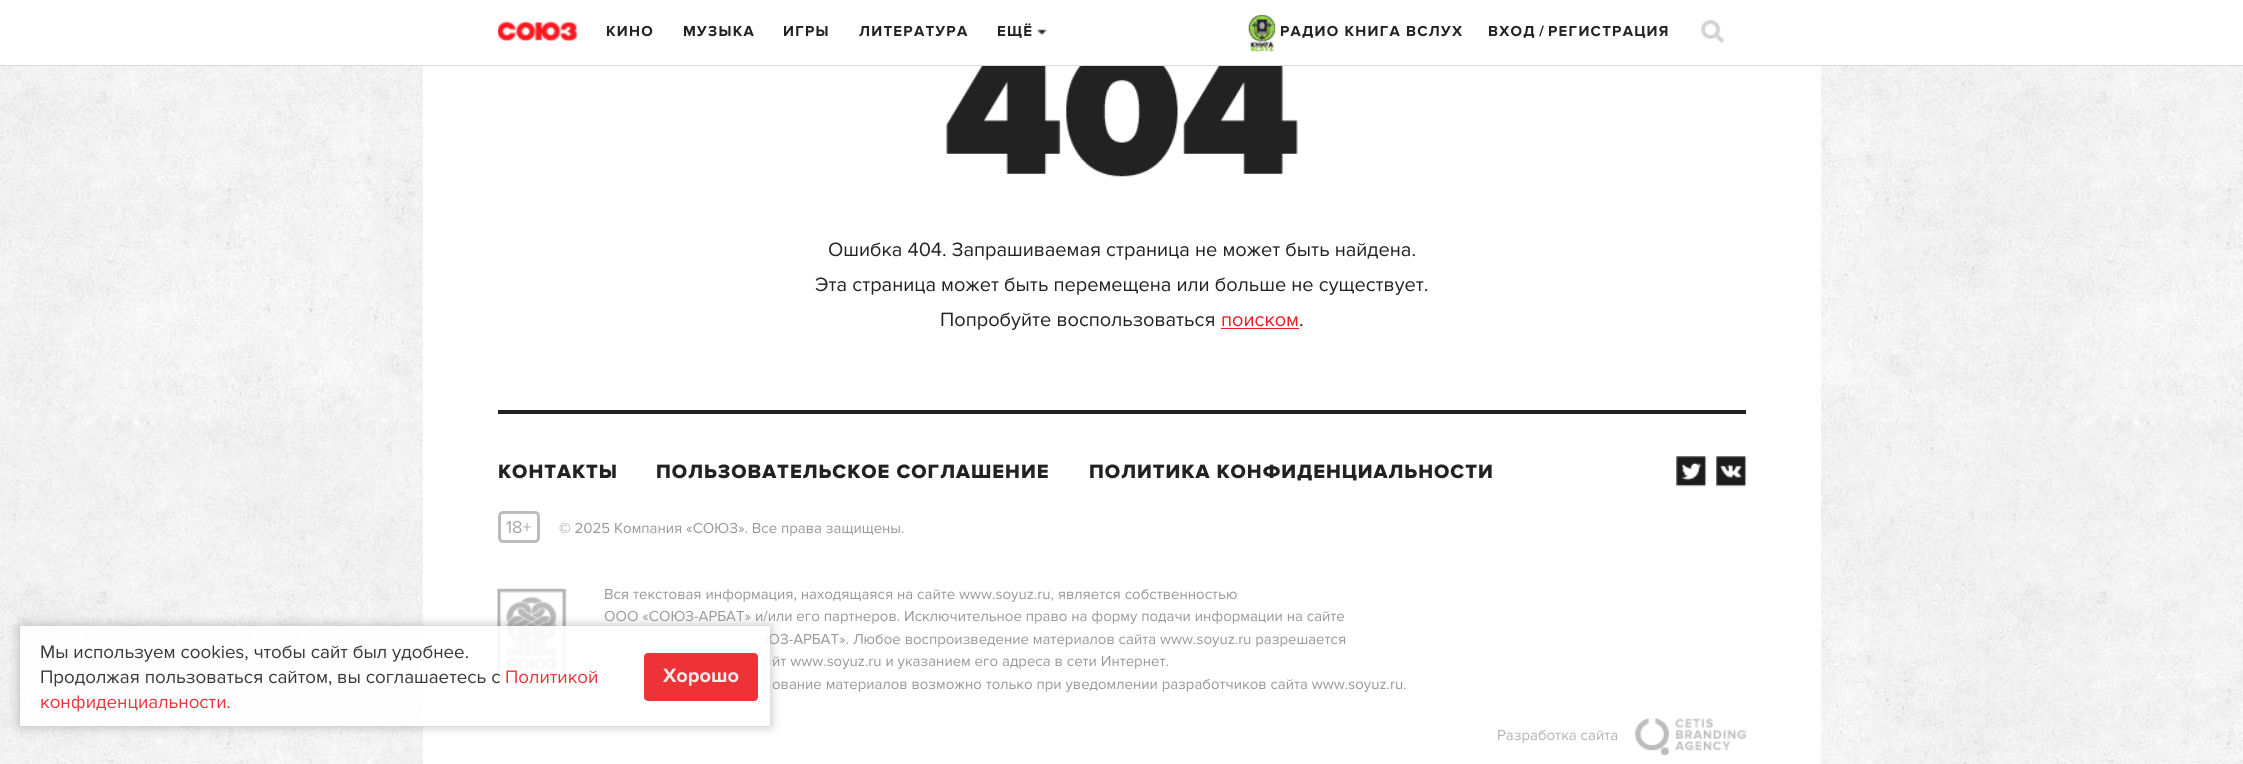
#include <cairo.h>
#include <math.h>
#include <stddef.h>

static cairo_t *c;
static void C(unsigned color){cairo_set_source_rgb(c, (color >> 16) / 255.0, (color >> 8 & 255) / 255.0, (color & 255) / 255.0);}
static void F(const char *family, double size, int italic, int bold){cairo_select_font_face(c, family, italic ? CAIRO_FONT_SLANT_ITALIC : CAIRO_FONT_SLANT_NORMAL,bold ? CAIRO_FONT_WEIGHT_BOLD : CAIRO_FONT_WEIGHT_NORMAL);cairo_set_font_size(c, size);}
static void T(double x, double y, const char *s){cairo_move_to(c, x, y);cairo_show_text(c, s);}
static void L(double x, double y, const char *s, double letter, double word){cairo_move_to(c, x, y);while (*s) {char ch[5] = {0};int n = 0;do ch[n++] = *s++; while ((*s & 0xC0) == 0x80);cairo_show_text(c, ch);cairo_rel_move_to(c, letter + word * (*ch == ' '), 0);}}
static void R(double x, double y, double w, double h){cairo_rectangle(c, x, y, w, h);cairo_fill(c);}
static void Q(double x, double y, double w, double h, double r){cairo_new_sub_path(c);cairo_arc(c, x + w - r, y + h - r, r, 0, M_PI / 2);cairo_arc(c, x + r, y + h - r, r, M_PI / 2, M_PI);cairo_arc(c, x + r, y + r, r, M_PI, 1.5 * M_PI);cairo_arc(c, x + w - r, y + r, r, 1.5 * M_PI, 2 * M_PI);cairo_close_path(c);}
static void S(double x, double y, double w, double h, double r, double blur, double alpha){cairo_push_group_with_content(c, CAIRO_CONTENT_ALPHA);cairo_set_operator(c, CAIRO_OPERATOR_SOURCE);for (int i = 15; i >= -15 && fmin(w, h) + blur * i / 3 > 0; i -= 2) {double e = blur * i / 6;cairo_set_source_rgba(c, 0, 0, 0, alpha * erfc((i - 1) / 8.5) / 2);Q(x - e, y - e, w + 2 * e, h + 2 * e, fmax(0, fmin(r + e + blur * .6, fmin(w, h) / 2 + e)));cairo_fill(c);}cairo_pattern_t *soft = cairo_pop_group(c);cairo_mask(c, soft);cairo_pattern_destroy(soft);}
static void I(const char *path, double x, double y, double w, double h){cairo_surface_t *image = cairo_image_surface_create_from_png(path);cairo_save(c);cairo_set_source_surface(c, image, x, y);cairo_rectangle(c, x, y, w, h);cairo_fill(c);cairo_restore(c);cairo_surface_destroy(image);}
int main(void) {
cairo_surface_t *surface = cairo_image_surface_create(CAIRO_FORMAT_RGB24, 2243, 764);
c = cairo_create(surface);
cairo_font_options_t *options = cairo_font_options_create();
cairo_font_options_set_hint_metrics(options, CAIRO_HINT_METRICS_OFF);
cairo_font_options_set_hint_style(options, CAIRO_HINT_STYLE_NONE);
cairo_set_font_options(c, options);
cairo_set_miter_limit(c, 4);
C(0xffffff);
cairo_paint(c);
I("1.png",0,66,2243,698);
C(0xffffff);
R(423,66,1398,698);
C(0xd9d9d9);
R(0,65,2243,1);
I("2.png",498,21,80,20);
F("Proxima Nova",15,0,1);
C(0x222222);
L(606,36,"КИНО",1.25,0);
L(683,36,"МУЗЫКА",1.25,0);
L(783,36,"ИГРЫ",1.25,0);
L(859,36,"ЛИТЕРАТУРА",1.25,0);
L(997,36,"ЕЩЁ",1.25,0);
I("3.png",1037,29,10,7);
I("4.png",1248,14,28,38);
L(1280,36,"РАДИО КНИГА ВСЛУХ",1.25,0);
L(1488,36,"ВХОД",1.25,0);
T(1539,36,"/");
L(1548,36,"РЕГИСТРАЦИЯ",1.25,0);
I("5.png",1701,20,23,23);
I("6.png",946,66,352,111);
F("Proxima Nova",20,0,0);
T(828,256,"Ошибка 404. Запрашиваемая страница не может быть найдена.");
T(815,291,"Эта страница может быть перемещена или больше не существует.");
T(940,326,"Попробуйте воспользоваться");
C(0xeb1c23);
T(1221,326,"поиском");
R(1221,328,78,1);
C(0x222222);
T(1299,326,".");
I("9.png",497,588,70,90);
cairo_save(c);
cairo_set_fill_rule(c,CAIRO_FILL_RULE_EVEN_ODD);
cairo_new_path(c);
cairo_move_to(c,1,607);
cairo_line_to(c,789,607);
cairo_line_to(c,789,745);
cairo_line_to(c,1,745);
cairo_close_path(c);
cairo_move_to(c,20,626);
cairo_line_to(c,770,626);
cairo_line_to(c,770,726);
cairo_line_to(c,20,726);
cairo_close_path(c);
cairo_clip(c);
C(0x000000);
S(20,626,750,100,0,6,.27);
cairo_restore(c);
F("Proxima Nova",15,0,0);
C(0x989898);
T(765,644,"ЮЗ-АРБАТ». Любое воспроизведение материалов сайта www.soyuz.ru разрешается");
cairo_set_source_rgba(c,1,1,1,0.9);
R(20,626,750,100);
F("Proxima Nova",18.75,0,0);
C(0x383838);
T(40,658,"Мы используем cookies, чтобы сайт был удобнее.");
T(40,683,"Продолжая пользоваться сайтом, вы соглашаетесь с");
C(0xed3339);
T(505,683,"Политикой");
T(40,708,"конфиденциальности.");
cairo_set_source_rgba(c,0.922,0.11,0.137,0.9);
Q(644,653,114,48,4);
cairo_fill(c);
F("Proxima Nova",20,0,1);
C(0xfdebeb);
T(663,682,"Хорошо");
C(0x222222);
R(498,410,1248,4);
F("Proxima Nova ExtraBold",20,0,0);
L(498,478,"КОНТАКТЫ",1,0);
L(656,478,"ПОЛЬЗОВАТЕЛЬСКОЕ СОГЛАШЕНИЕ",1,0);
L(1089,478,"ПОЛИТИКА КОНФИДЕНЦИАЛЬНОСТИ",1,0);
I("7.png",1676,456,31,31);
I("8.png",1716,456,31,31);
Q(499.5,512.5,39,29,3.5);
C(0xbcbcbc);
cairo_set_line_width(c,3);
cairo_stroke(c);
F("Proxima Nova",18,0,0);
C(0xa9a9a9);
T(506,533,"18+");
F("Proxima Nova",15,0,0);
C(0x989898);
T(559,533,"© 2025 Компания «СОЮЗ». Все права защищены.");
T(604,599,"Вся текстовая информация, находящаяся на сайте www.soyuz.ru, является собственностью");
T(604,621,"ООО «СОЮЗ-АРБАТ» и/или его партнеров. Исключительное право на форму подачи информации на сайте");
T(772,666,"йт www.soyuz.ru и указанием его адреса в сети Интернет.");
T(772,689,"ование материалов возможно только при уведомлении разработчиков сайта www.soyuz.ru.");
C(0xb3b3b3);
T(1497,740,"Разработка сайта");
I("10.png",1635,718,112,37);
cairo_surface_write_to_png(surface, "o.png");
cairo_font_options_destroy(options);
cairo_destroy(c);
cairo_surface_destroy(surface);
return 0;
}
